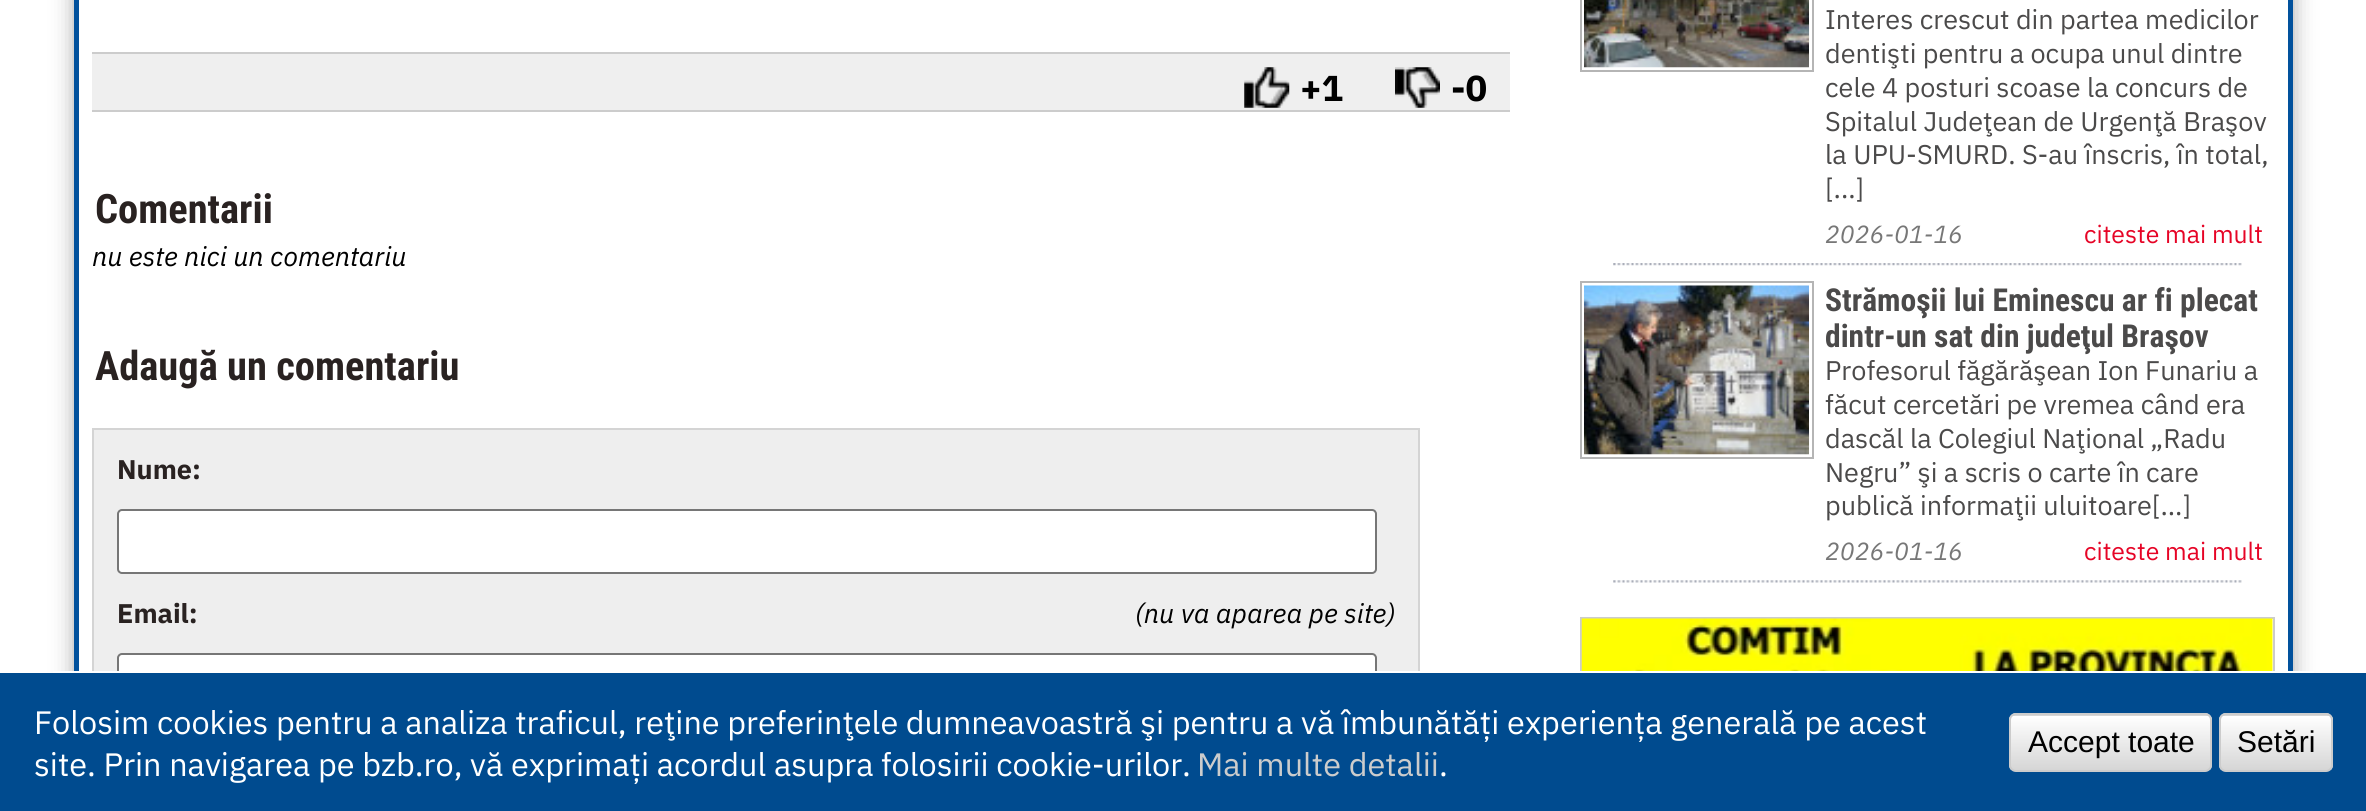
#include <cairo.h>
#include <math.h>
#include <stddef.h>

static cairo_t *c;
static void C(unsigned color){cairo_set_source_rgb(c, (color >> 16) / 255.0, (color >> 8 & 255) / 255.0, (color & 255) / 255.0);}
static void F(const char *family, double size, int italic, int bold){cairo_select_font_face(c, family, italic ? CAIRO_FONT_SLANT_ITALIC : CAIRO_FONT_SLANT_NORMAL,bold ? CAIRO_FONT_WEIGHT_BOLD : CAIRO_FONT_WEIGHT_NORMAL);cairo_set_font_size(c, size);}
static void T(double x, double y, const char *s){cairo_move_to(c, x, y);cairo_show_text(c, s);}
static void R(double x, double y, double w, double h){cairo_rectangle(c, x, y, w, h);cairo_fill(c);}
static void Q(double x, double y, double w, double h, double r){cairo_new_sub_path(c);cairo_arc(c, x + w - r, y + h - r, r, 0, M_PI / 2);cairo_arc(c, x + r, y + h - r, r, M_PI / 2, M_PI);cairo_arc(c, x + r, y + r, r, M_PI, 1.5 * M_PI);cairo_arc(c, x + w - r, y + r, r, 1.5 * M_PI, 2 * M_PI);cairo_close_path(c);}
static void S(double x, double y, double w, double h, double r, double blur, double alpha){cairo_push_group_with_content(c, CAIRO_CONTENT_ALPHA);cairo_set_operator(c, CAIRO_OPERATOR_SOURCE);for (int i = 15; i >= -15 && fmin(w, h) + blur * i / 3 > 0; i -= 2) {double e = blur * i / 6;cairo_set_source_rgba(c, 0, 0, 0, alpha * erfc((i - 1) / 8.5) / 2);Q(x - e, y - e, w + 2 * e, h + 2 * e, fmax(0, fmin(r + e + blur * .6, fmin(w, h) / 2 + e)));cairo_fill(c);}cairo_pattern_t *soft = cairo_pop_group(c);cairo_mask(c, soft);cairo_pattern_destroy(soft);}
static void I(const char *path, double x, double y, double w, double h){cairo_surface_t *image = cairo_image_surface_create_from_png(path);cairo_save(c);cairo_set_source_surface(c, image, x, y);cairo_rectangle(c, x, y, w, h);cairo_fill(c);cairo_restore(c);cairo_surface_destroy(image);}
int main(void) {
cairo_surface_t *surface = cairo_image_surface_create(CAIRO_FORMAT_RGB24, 2366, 811);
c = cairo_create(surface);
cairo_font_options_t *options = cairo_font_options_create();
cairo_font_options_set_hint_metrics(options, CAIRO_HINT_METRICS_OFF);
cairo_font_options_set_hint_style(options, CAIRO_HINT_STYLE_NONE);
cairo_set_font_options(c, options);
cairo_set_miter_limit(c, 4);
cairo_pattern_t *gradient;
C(0xffffff);
cairo_paint(c);
C(0xaaaaaa);
S(74,-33,2219,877,0,11,1);
C(0xffffff);
R(79,0,2209,671);
cairo_rectangle(c,76.5,-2.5,2214,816);
C(0x02529d);
cairo_set_line_width(c,5);
cairo_stroke(c);
C(0xefefef);
R(92,54,1418,56);
C(0xcccccc);
R(92,52,1418,2);
R(92,110,1418,2);
I("1.png",1244,67,46,41);
F("IBM Plex Sans",36,0,1);
C(0x000000);
T(1300,101,"+1");
I("2.png",1395,67,45,41);
T(1451,101,"-0");
F("Roboto Condensed",40.5,0,1);
C(0x292221);
T(95,223,"Comentarii");
F("IBM Plex Sans",27,1,0);
C(0x000000);
T(92,266,"nu este nici un comentariu");
F("Roboto Condensed",40.5,0,1);
C(0x292221);
T(95,380,"Adaugă un comentariu");
C(0xeeeeee);
R(94,430,1324,241);
cairo_rectangle(c,93,429,1326,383);
C(0xd4d4d4);
cairo_set_line_width(c,2);
cairo_stroke(c);
F("IBM Plex Sans",27,0,1);
C(0x292221);
T(117,479,"Nume:");
C(0xffffff);
Q(118,510,1258,63,4);
cairo_fill_preserve(c);
C(0x767676);
cairo_stroke(c);
C(0x292221);
T(117,623,"Email:");
F("IBM Plex Sans",27,1,0);
C(0x000000);
T(1135,623,"(nu va aparea pe site)");
C(0xffffff);
Q(118,654,1258,63,4);
cairo_fill_preserve(c);
C(0x767676);
cairo_stroke(c);
I("3.png",1613,263,629,3);
cairo_rectangle(c,1581,-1,232,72);
C(0xb5b5b5);
cairo_stroke(c);
I("4.png",1584,0,225,68);
F("IBM Plex Sans",27,0,0);
C(0x4b4a4a);
T(1825,29,"Interes crescut din partea medicilor");
T(1825,63,"dentişti pentru a ocupa unul dintre");
T(1825,97,"cele 4 posturi scoase la concurs de");
T(1825,131,"Spitalul Judeţean de Urgenţă Braşov");
T(1825,164,"la UPU-SMURD. S-au înscris, în total,");
T(1825,198,"[...]");
F("IBM Plex Sans",24.75,1,0);
C(0x777777);
T(1825,243,"2026-01-16");
F("IBM Plex Sans",24.75,0,0);
C(0xe60426);
T(2084,243,"citeste mai mult");
I("5.png",1613,580,629,3);
cairo_rectangle(c,1581,282,232,176);
C(0xb5b5b5);
cairo_stroke(c);
I("6.png",1584,285,225,170);
F("Roboto Condensed",31.6,0,1);
C(0x4b4a4a);
T(1825,311,"Strămoşii lui Eminescu ar fi plecat");
T(1825,347,"dintr-un sat din judeţul Braşov");
F("IBM Plex Sans",27,0,0);
T(1825,380,"Profesorul făgărăşean Ion Funariu a");
T(1825,414,"făcut cercetări pe vremea când era");
T(1825,448,"dascăl la Colegiul Naţional „Radu");
T(1825,482,"Negru” şi a scris o carte în care");
T(1825,515,"publică informaţii uluitoare[...]");
F("IBM Plex Sans",24.75,1,0);
C(0x777777);
T(1825,560,"2026-01-16");
F("IBM Plex Sans",24.75,0,0);
C(0xe60426);
T(2084,560,"citeste mai mult");
cairo_rectangle(c,1581,618,693,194);
C(0xcccccc);
cairo_stroke(c);
I("7.png",1581,618,692,53);
C(0x004b8f);
R(0,673,2366,138);
C(0xffffff);
R(53,671,2261,2);
F("IBM Plex Sans",32.4,0,0);
T(34,734,"Folosim cookies pentru a analiza traficul, reţine preferinţele dumneavoastră şi pentru a vă îmbunătăți experiența generală pe acest");
T(34,776,"site. Prin navigarea pe bzb.ro, vă exprimați acordul asupra folosirii cookie-urilor.");
C(0xcccccc);
T(1197,776,"Mai multe detalii");
C(0xffffff);
T(1439,776,".");
cairo_save(c);
Q(2009,713,203,59,7);
cairo_clip(c);
gradient = cairo_pattern_create_linear(2111,662,2111,716);
cairo_pattern_add_color_stop_rgba(gradient,0,1,1,1,1);
cairo_pattern_add_color_stop_rgba(gradient,1,0.839,0.839,0.839,1);
cairo_set_source(c,gradient);
cairo_pattern_destroy(gradient);
R(2009,713,203,3);
gradient = cairo_pattern_create_linear(2111,716,2111,770);
cairo_pattern_add_color_stop_rgba(gradient,0,1,1,1,1);
cairo_pattern_add_color_stop_rgba(gradient,1,0.839,0.839,0.839,1);
cairo_set_source(c,gradient);
cairo_pattern_destroy(gradient);
R(2009,716,203,54);
cairo_restore(c);
Q(2010,714,201,57,6);
C(0xcccccc);
cairo_stroke(c);
F("Liberation Sans",30,0,0);
C(0x000000);
T(2028,752,"Accept toate");
cairo_save(c);
Q(2219,713,114,59,7);
cairo_clip(c);
gradient = cairo_pattern_create_linear(2276,662,2276,716);
cairo_pattern_add_color_stop_rgba(gradient,0,1,1,1,1);
cairo_pattern_add_color_stop_rgba(gradient,1,0.839,0.839,0.839,1);
cairo_set_source(c,gradient);
cairo_pattern_destroy(gradient);
R(2219,713,114,3);
gradient = cairo_pattern_create_linear(2276,716,2276,770);
cairo_pattern_add_color_stop_rgba(gradient,0,1,1,1,1);
cairo_pattern_add_color_stop_rgba(gradient,1,0.839,0.839,0.839,1);
cairo_set_source(c,gradient);
cairo_pattern_destroy(gradient);
R(2219,716,114,54);
cairo_restore(c);
Q(2220,714,112,57,6);
C(0xcccccc);
cairo_stroke(c);
C(0x000000);
T(2237,752,"Setări");
cairo_surface_write_to_png(surface, "o.png");
cairo_font_options_destroy(options);
cairo_destroy(c);
cairo_surface_destroy(surface);
return 0;
}
